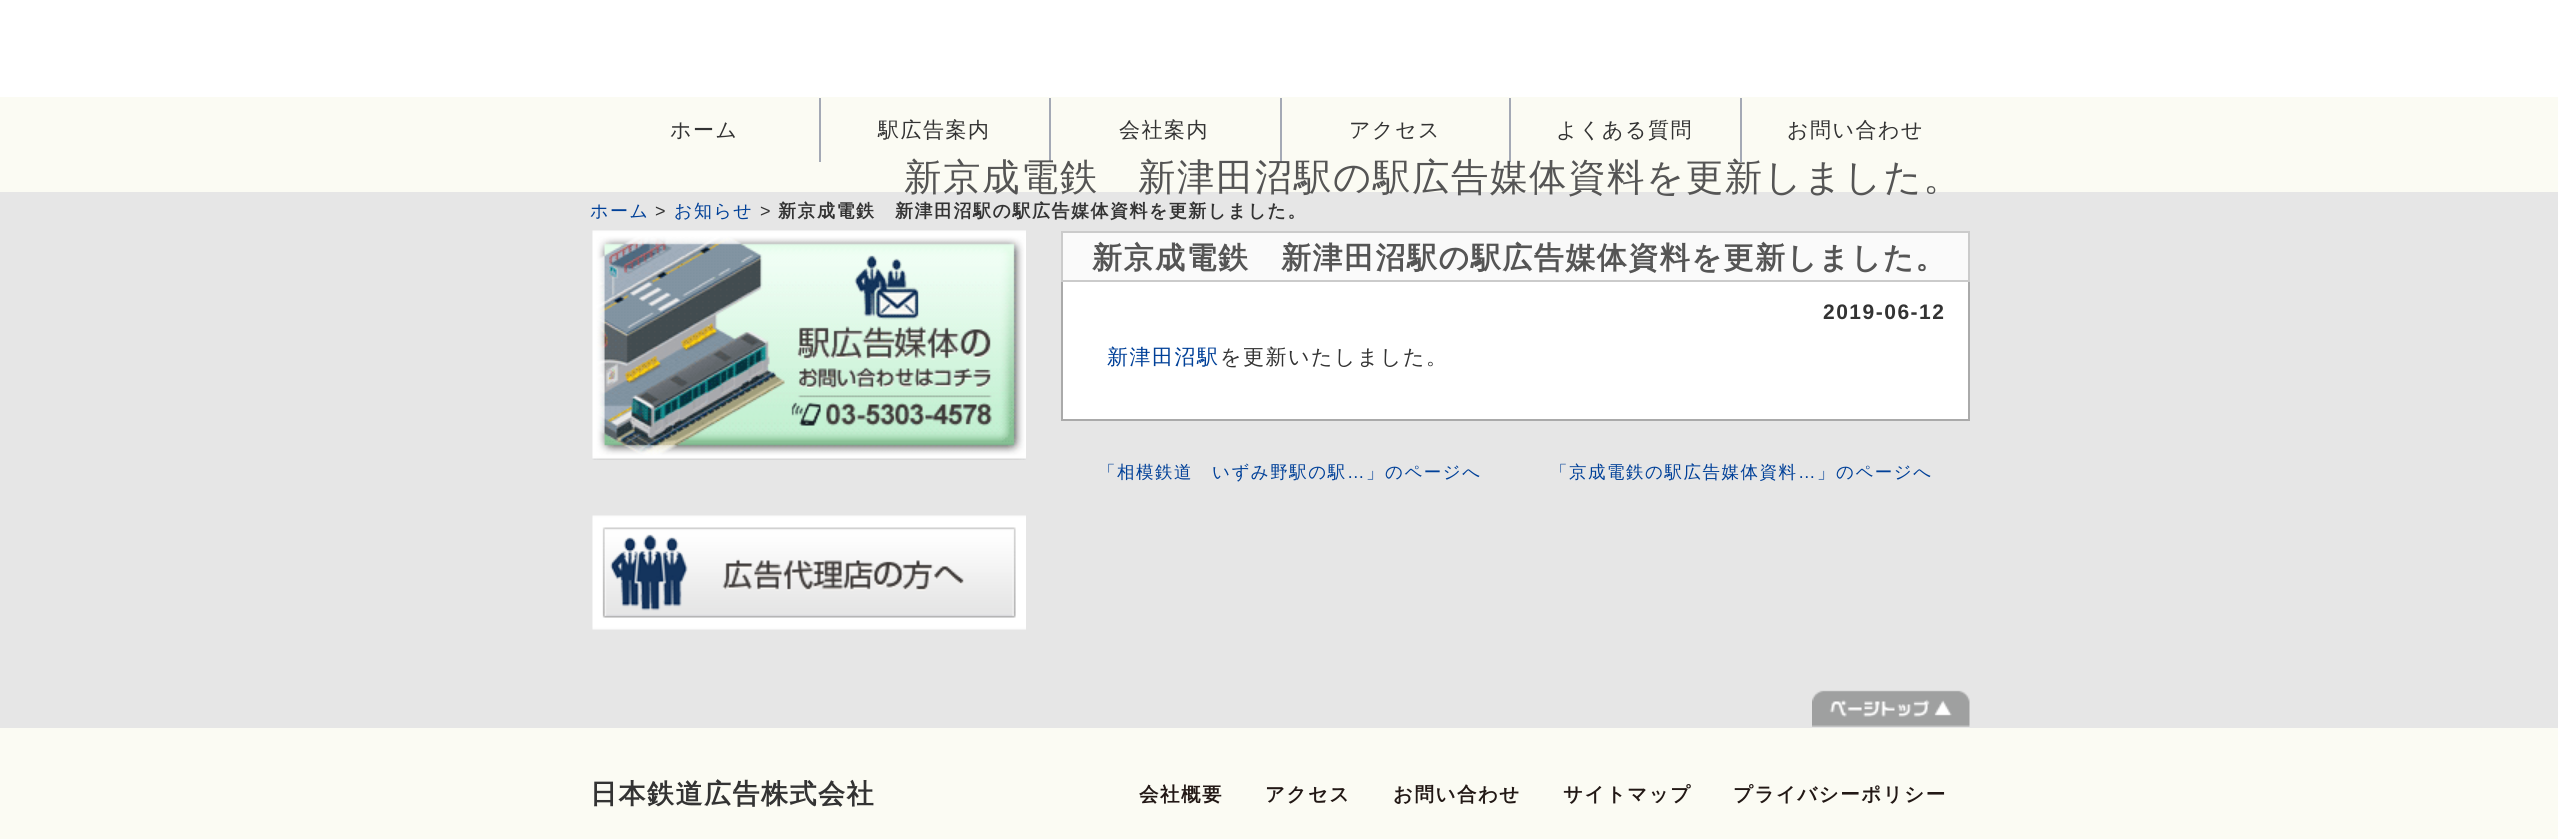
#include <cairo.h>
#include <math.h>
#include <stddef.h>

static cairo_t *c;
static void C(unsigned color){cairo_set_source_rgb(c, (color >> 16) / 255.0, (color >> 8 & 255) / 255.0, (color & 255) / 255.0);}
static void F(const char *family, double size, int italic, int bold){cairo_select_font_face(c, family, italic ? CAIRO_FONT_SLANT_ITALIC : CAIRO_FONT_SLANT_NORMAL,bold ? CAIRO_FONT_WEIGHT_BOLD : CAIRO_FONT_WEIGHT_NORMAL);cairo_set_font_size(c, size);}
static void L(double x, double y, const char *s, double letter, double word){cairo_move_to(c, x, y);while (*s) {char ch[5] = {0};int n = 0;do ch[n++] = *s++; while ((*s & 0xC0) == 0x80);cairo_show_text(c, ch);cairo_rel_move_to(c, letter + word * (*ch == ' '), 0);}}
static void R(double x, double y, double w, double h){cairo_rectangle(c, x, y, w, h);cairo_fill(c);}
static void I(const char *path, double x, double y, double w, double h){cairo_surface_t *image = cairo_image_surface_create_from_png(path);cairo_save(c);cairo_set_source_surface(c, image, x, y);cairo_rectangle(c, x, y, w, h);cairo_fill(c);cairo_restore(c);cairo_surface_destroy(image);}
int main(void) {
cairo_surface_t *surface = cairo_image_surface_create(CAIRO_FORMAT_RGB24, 2558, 839);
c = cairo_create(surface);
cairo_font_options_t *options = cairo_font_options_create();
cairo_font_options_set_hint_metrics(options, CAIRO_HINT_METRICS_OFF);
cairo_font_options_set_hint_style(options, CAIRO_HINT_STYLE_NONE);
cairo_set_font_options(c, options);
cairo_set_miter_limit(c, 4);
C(0xfbfbf3);
cairo_paint(c);
C(0xffffff);
R(0,0,2558,97);
C(0xa4a9b5);
R(819,98,2,64);
F("WenQuanYi Zen Hei Medium",21,0,0);
C(0x333333);
L(670,137,"ホーム",1.5,0);
C(0xa4a9b5);
R(1049,98,2,64);
C(0x333333);
L(878,137,"駅広告案内",1.5,0);
C(0xa4a9b5);
R(1280,98,2,64);
C(0x333333);
L(1119,137,"会社案内",1.5,0);
C(0xa4a9b5);
R(1509,98,2,64);
C(0x333333);
L(1349,137,"アクセス",1.5,0);
C(0xa4a9b5);
R(1740,98,2,64);
C(0x333333);
L(1556,137,"よくある質問",1.5,0);
L(1787,137,"お問い合わせ",1.5,0);
C(0xe6e6e6);
R(0,192,2558,536);
F("WenQuanYi Zen Hei Medium",37.5,0,0);
C(0x555555);
L(904,190,"新京成電鉄　新津田沼駅の駅広告媒体資料を更新しました。",1.5,0);
F("WenQuanYi Zen Hei Medium",18,0,0);
C(0x004098);
L(590,217,"ホーム",1.5,0);
F("Liberation Sans",18,0,0);
C(0x333333);
L(655,217,">",1.5,0);
F("WenQuanYi Zen Hei Medium",18,0,0);
C(0x004098);
L(674,217,"お知らせ",1.5,0);
F("Liberation Sans",18,0,0);
C(0x333333);
L(760,217,">",1.5,0);
F("WenQuanYi Zen Hei",18,0,1);
L(778,217,"新京成電鉄　新津田沼駅の駅広告媒体資料を更新しました。",1.5,0);
I("1.png",592,230,434,230);
I("2.png",592,515,434,115);
C(0xfafafa);
cairo_rectangle(c,1062,232,907,49);
cairo_fill_preserve(c);
C(0xcbcbcb);
cairo_stroke(c);
F("WenQuanYi Zen Hei",30,0,1);
C(0x555555);
L(1092,268,"新京成電鉄　新津田沼駅の駅広告媒体資料を更新しました。",1.5,0);
C(0xffffff);
R(1063,282,905,137);
C(0xaaaaaa);
R(1968,282,2,138);
R(1061,419,909,2);
R(1061,282,2,138);
F("Liberation Sans",21,0,1);
C(0x333333);
L(1823,319,"2019-06-12",1.5,0);
F("WenQuanYi Zen Hei Medium",21,0,0);
C(0x004098);
L(1107,364,"新津田沼駅",1.5,0);
C(0x333333);
L(1220,364,"を更新いたしました。",1.5,0);
F("WenQuanYi Zen Hei Medium",17.5,0,0);
C(0x004098);
L(1098,478,"「相模鉄道　いずみ野駅の駅",1.5,0);
F("Liberation Sans",17.5,0,0);
L(1347,478,"…",1.5,0);
F("WenQuanYi Zen Hei Medium",17.5,0,0);
L(1366,478,"」のページへ",1.5,0);
L(1550,478,"「京成電鉄の駅広告媒体資料",1.5,0);
F("Liberation Sans",17.5,0,0);
L(1798,478,"…",1.5,0);
F("WenQuanYi Zen Hei Medium",17.5,0,0);
L(1817,478,"」のページへ",1.5,0);
I("3.png",1812,690,158,37);
F("WenQuanYi Zen Hei",27,0,1);
C(0x333333);
L(590,803,"日本鉄道広告株式会社",1.5,0);
F("WenQuanYi Zen Hei",19.5,0,1);
C(0x221815);
L(1139,801,"会社概要",1.5,0);
L(1265,801,"アクセス",1.5,0);
L(1393,801,"お問い合わせ",1.5,0);
L(1563,801,"サイトマップ",1.5,0);
L(1733,801,"プライバシーポリシー",1.5,0);
cairo_surface_write_to_png(surface, "o.png");
cairo_font_options_destroy(options);
cairo_destroy(c);
cairo_surface_destroy(surface);
return 0;
}
